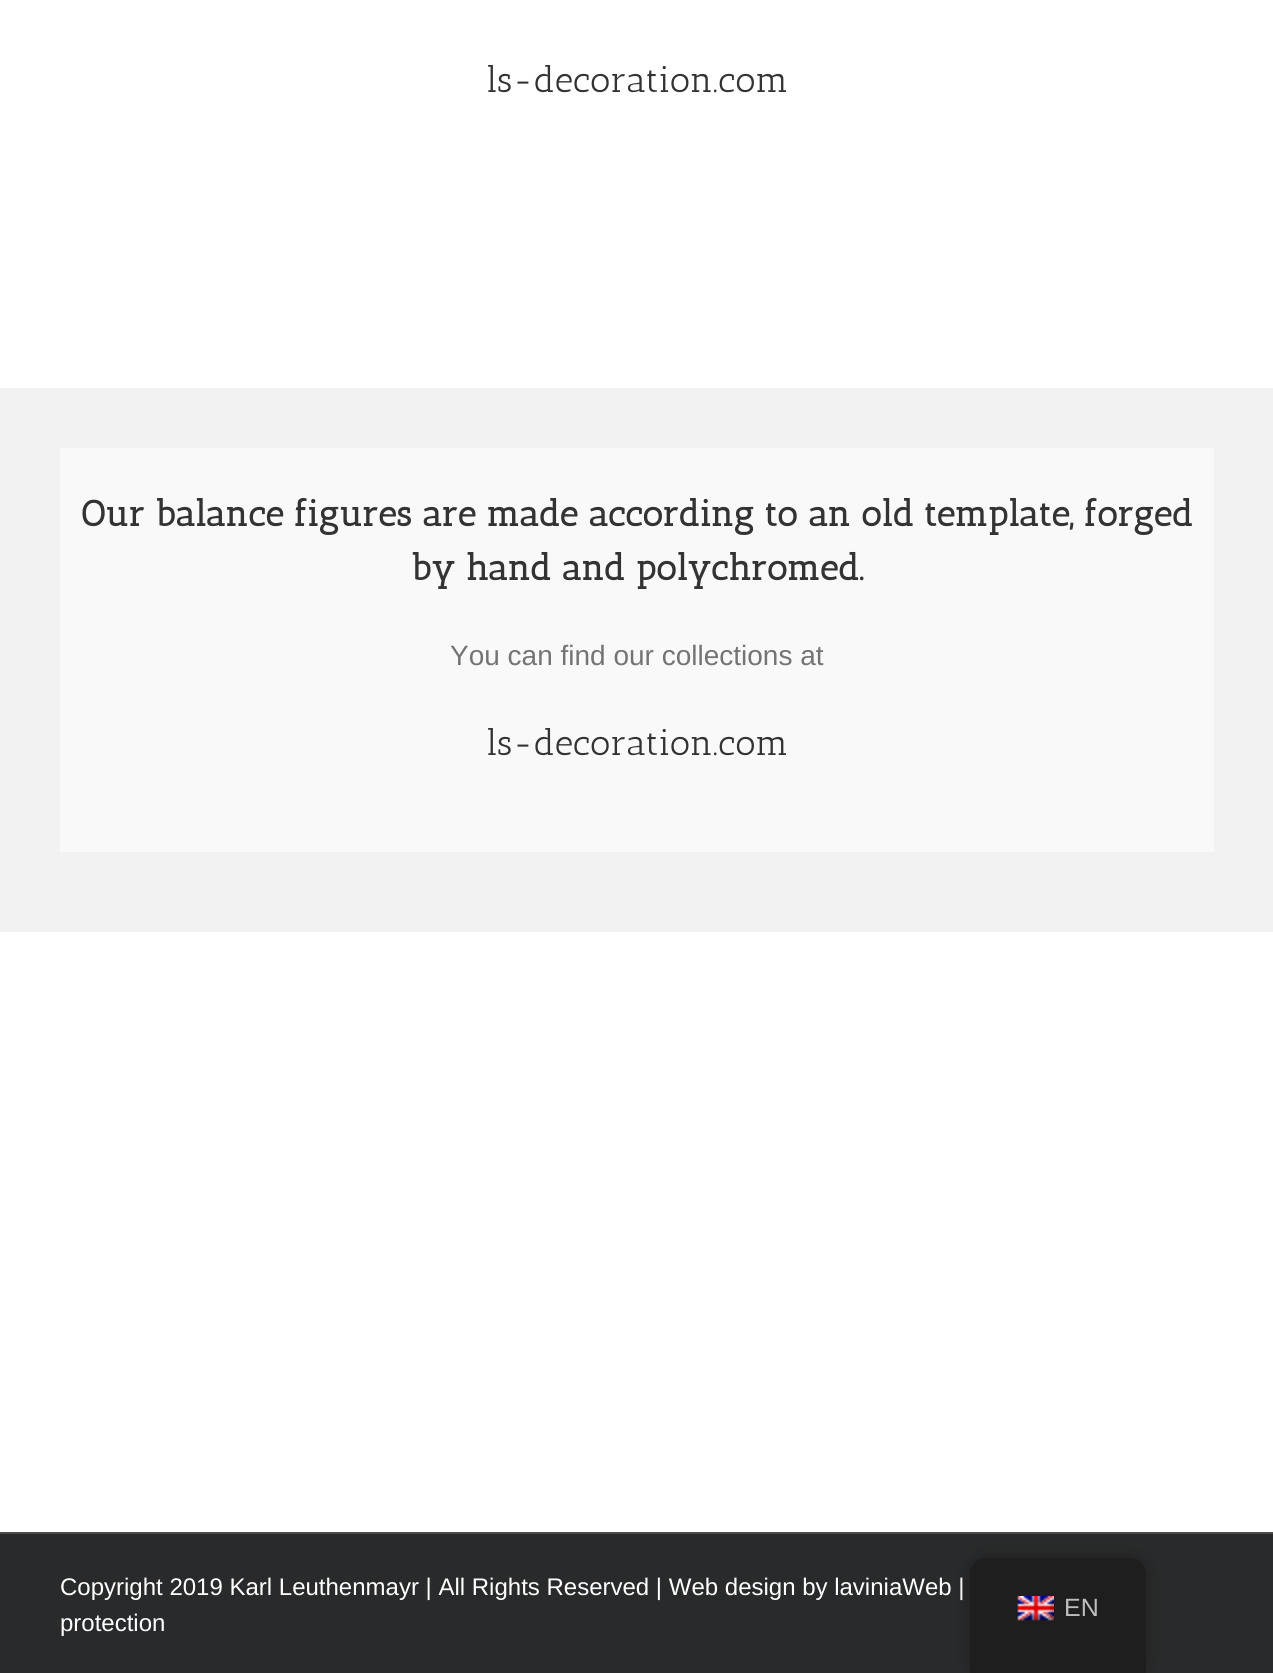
#include <cairo.h>
#include <math.h>
#include <stddef.h>

static cairo_t *c;
static void C(unsigned color){cairo_set_source_rgb(c, (color >> 16) / 255.0, (color >> 8 & 255) / 255.0, (color & 255) / 255.0);}
static void F(const char *family, double size, int italic, int bold){cairo_select_font_face(c, family, italic ? CAIRO_FONT_SLANT_ITALIC : CAIRO_FONT_SLANT_NORMAL,bold ? CAIRO_FONT_WEIGHT_BOLD : CAIRO_FONT_WEIGHT_NORMAL);cairo_set_font_size(c, size);}
static void T(double x, double y, const char *s){cairo_move_to(c, x, y);cairo_show_text(c, s);}
static void R(double x, double y, double w, double h){cairo_rectangle(c, x, y, w, h);cairo_fill(c);}
static void Q(double x, double y, double w, double h, double r){cairo_new_sub_path(c);cairo_arc(c, x + w - r, y + h - r, r, 0, M_PI / 2);cairo_arc(c, x + r, y + h - r, r, M_PI / 2, M_PI);cairo_arc(c, x + r, y + r, r, M_PI, 1.5 * M_PI);cairo_arc(c, x + w - r, y + r, r, 1.5 * M_PI, 2 * M_PI);cairo_close_path(c);}
static void S(double x, double y, double w, double h, double r, double blur, double alpha){cairo_push_group_with_content(c, CAIRO_CONTENT_ALPHA);cairo_set_operator(c, CAIRO_OPERATOR_SOURCE);for (int i = 15; i >= -15 && fmin(w, h) + blur * i / 3 > 0; i -= 2) {double e = blur * i / 6;cairo_set_source_rgba(c, 0, 0, 0, alpha * erfc((i - 1) / 8.5) / 2);Q(x - e, y - e, w + 2 * e, h + 2 * e, fmax(0, fmin(r + e + blur * .6, fmin(w, h) / 2 + e)));cairo_fill(c);}cairo_pattern_t *soft = cairo_pop_group(c);cairo_mask(c, soft);cairo_pattern_destroy(soft);}
static void I(const char *path, double x, double y, double w, double h){cairo_surface_t *image = cairo_image_surface_create_from_png(path);cairo_save(c);cairo_set_source_surface(c, image, x, y);cairo_rectangle(c, x, y, w, h);cairo_fill(c);cairo_restore(c);cairo_surface_destroy(image);}
int main(void) {
cairo_surface_t *surface = cairo_image_surface_create(CAIRO_FORMAT_RGB24, 1273, 1673);
c = cairo_create(surface);
cairo_font_options_t *options = cairo_font_options_create();
cairo_font_options_set_hint_metrics(options, CAIRO_HINT_METRICS_OFF);
cairo_font_options_set_hint_style(options, CAIRO_HINT_STYLE_NONE);
cairo_set_font_options(c, options);
cairo_set_miter_limit(c, 4);
C(0xffffff);
cairo_paint(c);
F("Antic Slab",36,0,0);
C(0x333333);
T(486,92,"ls-decoration.com");
C(0xf2f2f2);
R(0,388,1273,544);
C(0xf9f9f9);
R(60,448,1154,404);
F("Antic Slab",36,0,1);
C(0x333333);
T(81,526,"Our balance figures are made according to an old template, forged");
T(411,580,"by hand and polychromed.");
F("Liberation Sans",28,0,0);
C(0x747474);
T(450,665,"You can find our collections at");
F("Antic Slab",36,0,0);
C(0x333333);
T(486,755,"ls-decoration.com");
C(0x282a2b);
R(0,1534,1273,139);
C(0x4b4c4d);
R(0,1532,1273,2);
F("Liberation Sans",24,0,0);
C(0xffffff);
T(60,1595,"Copyright 2019 Karl Leuthenmayr | All Rights Reserved | Web design by laviniaWeb |");
T(60,1631,"protection");
C(0x000000);
S(970,1558,176,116,16,8,.25);
C(0x1e1e1e);
cairo_new_path(c);
cairo_move_to(c,986,1558);
cairo_line_to(c,1130,1558);
cairo_curve_to(c,1139,1558,1146,1565,1146,1574);
cairo_line_to(c,1146,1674);
cairo_line_to(c,970,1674);
cairo_line_to(c,970,1574);
cairo_curve_to(c,970,1565,977,1558,986,1558);
cairo_close_path(c);
cairo_fill(c);
I("1.png",1017,1596,37,25);
F("Liberation Sans",25,0,0);
C(0xbdbdbd);
T(1064,1616,"EN");
cairo_surface_write_to_png(surface, "o.png");
cairo_font_options_destroy(options);
cairo_destroy(c);
cairo_surface_destroy(surface);
return 0;
}
